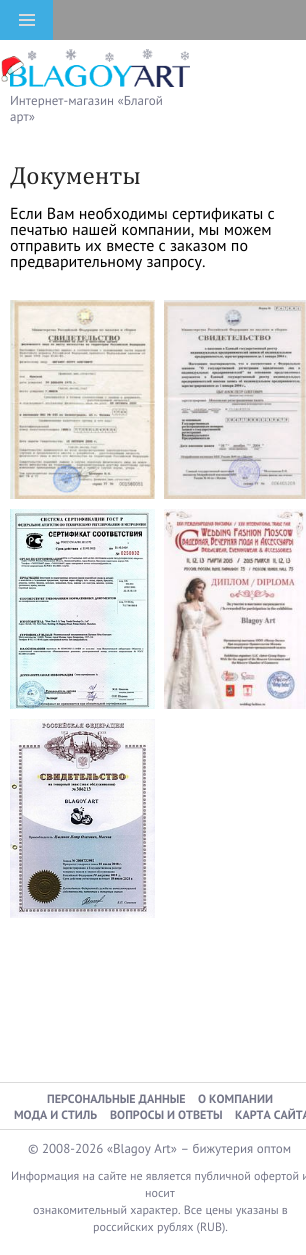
#include <cairo.h>
#include <math.h>
#include <stddef.h>

static cairo_t *c;
static void C(unsigned color){cairo_set_source_rgb(c, (color >> 16) / 255.0, (color >> 8 & 255) / 255.0, (color & 255) / 255.0);}
static void F(const char *family, double size, int italic, int bold){cairo_select_font_face(c, family, italic ? CAIRO_FONT_SLANT_ITALIC : CAIRO_FONT_SLANT_NORMAL,bold ? CAIRO_FONT_WEIGHT_BOLD : CAIRO_FONT_WEIGHT_NORMAL);cairo_set_font_size(c, size);}
static void T(double x, double y, const char *s){cairo_move_to(c, x, y);cairo_show_text(c, s);}
static void R(double x, double y, double w, double h){cairo_rectangle(c, x, y, w, h);cairo_fill(c);}
static void I(const char *path, double x, double y, double w, double h){cairo_surface_t *image = cairo_image_surface_create_from_png(path);cairo_save(c);cairo_set_source_surface(c, image, x, y);cairo_rectangle(c, x, y, w, h);cairo_fill(c);cairo_restore(c);cairo_surface_destroy(image);}
int main(void) {
cairo_surface_t *surface = cairo_image_surface_create(CAIRO_FORMAT_RGB24, 306, 1255);
c = cairo_create(surface);
cairo_font_options_t *options = cairo_font_options_create();
cairo_font_options_set_hint_metrics(options, CAIRO_HINT_METRICS_OFF);
cairo_font_options_set_hint_style(options, CAIRO_HINT_STYLE_NONE);
cairo_set_font_options(c, options);
cairo_set_miter_limit(c, 4);
C(0xffffff);
cairo_paint(c);
C(0x999999);
R(53,0,253,40);
C(0x3eade2);
R(0,0,53,40);
C(0xdbdbdc);
R(19,14,16,2);
R(19,19,16,2);
R(19,24,16,2);
I("2.png",10,65,180,22);
I("1.png",1,49,188,33);
F("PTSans",13,0,0);
C(0x747688);
T(10,105,"Интернет-магазин «Благой");
T(10,121,"арт»");
F("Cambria",25,0,0);
C(0x252525);
T(10,184,"Документы");
F("PTSans",16,0,0);
C(0x000000);
T(10,219,"Если Вам необходимы сертификаты с");
T(10,235,"печатью нашей компании, мы можем");
T(10,251,"отправить их вместе с заказом по");
T(10,267,"предварительному запросу.");
I("3.png",10,300,145,199);
I("4.png",164,300,142,199);
I("5.png",10,509,145,200);
I("6.png",164,509,142,200);
I("7.png",10,719,145,199);
C(0xdadada);
R(0,1082,306,1);
R(0,1129,306,1);
F("PTSans",12,0,1);
C(0x747688);
T(47,1103,"ПЕРСОНАЛЬНЫЕ ДАННЫЕ");
T(198,1103,"О КОМПАНИИ");
T(14,1119,"МОДА И СТИЛЬ");
T(110,1119,"ВОПРОСЫ И ОТВЕТЫ");
T(235,1119,"КАРТА САЙТА");
F("PTSans",13,0,0);
T(28,1153,"© 2008-2026 «Blagoy Art» – бижутерия оптом");
F("PTSans",12,0,0);
T(11,1180,"Информация на сайте не является публичной офертой и");
T(145,1197,"носит");
T(33,1214,"ознакомительный характер. Все цены указаны в");
T(93,1231,"российских рублях (RUB).");
cairo_surface_write_to_png(surface, "o.png");
cairo_font_options_destroy(options);
cairo_destroy(c);
cairo_surface_destroy(surface);
return 0;
}
